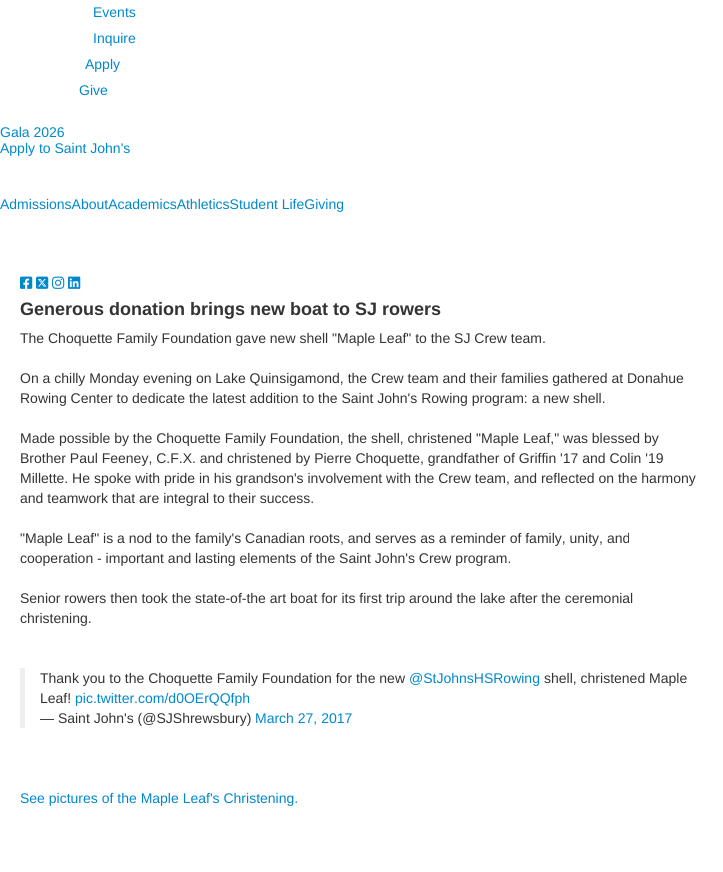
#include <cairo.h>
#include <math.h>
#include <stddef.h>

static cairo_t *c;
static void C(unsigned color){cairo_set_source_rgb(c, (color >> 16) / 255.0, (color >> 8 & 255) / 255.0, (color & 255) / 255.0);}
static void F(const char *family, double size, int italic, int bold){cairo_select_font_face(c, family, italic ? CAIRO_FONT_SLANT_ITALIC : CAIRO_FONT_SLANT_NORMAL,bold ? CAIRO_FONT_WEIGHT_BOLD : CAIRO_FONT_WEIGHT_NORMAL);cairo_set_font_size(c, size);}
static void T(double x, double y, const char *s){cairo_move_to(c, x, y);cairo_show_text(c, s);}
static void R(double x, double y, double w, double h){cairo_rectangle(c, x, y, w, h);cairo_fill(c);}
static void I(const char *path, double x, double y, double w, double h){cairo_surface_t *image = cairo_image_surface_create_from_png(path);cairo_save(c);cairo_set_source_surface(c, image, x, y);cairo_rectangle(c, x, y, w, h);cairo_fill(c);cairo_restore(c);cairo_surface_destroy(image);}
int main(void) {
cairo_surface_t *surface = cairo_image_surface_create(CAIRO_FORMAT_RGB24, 723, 872);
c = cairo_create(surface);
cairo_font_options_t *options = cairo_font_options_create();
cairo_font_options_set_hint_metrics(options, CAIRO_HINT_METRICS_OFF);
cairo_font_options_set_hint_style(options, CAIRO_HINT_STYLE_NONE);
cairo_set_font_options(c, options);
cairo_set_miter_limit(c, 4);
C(0xffffff);
cairo_paint(c);
F("Liberation Sans",14,0,0);
C(0x0088cc);
T(93,17,"Events");
T(93,43,"Inquire");
T(85,69,"Apply");
T(79,95,"Give");
T(0,137,"Gala 2026");
T(0,153,"Apply to Saint John's");
T(0,209,"AdmissionsAboutAcademicsAthleticsStudent LifeGiving");
I("1.png",20,276,13,13);
I("2.png",36,276,13,13);
I("3.png",52,276,13,13);
I("4.png",68,276,13,13);
F("Liberation Sans",18,0,1);
C(0x333333);
T(20,315,"Generous donation brings new boat to SJ rowers");
F("Liberation Sans",14,0,0);
T(20,343,"The Choquette Family Foundation gave new shell \"Maple Leaf\" to the SJ Crew team.");
T(20,383,"On a chilly Monday evening on Lake Quinsigamond, the Crew team and their families gathered at Donahue");
T(20,403,"Rowing Center to dedicate the latest addition to the Saint John's Rowing program: a new shell.");
T(20,443,"Made possible by the Choquette Family Foundation, the shell, christened \"Maple Leaf,\" was blessed by");
T(20,463,"Brother Paul Feeney, C.F.X. and christened by Pierre Choquette, grandfather of Griffin '17 and Colin '19");
T(20,483,"Millette. He spoke with pride in his grandson's involvement with the Crew team, and reflected on the harmony");
T(20,503,"and teamwork that are integral to their success.");
T(20,543,"\"Maple Leaf\" is a nod to the family's Canadian roots, and serves as a reminder of family, unity, and");
T(20,563,"cooperation - important and lasting elements of the Saint John's Crew program.");
T(20,603,"Senior rowers then took the state-of-the art boat for its first trip around the lake after the ceremonial");
T(20,623,"christening.");
C(0xeeeeee);
R(20,668,5,60);
C(0x333333);
T(40,683,"Thank you to the Choquette Family Foundation for the new");
C(0x0088cc);
T(409,683,"@StJohnsHSRowing");
C(0x333333);
T(544,683,"shell, christened Maple");
T(40,703,"Leaf!");
C(0x0088cc);
T(75,703,"pic.twitter.com/d0OErQQfph");
C(0x333333);
T(40,723,"— Saint John's (@SJShrewsbury)");
C(0x0088cc);
T(255,723,"March 27, 2017");
T(20,803,"See pictures of the Maple Leaf's Christening.");
cairo_surface_write_to_png(surface, "o.png");
cairo_font_options_destroy(options);
cairo_destroy(c);
cairo_surface_destroy(surface);
return 0;
}
